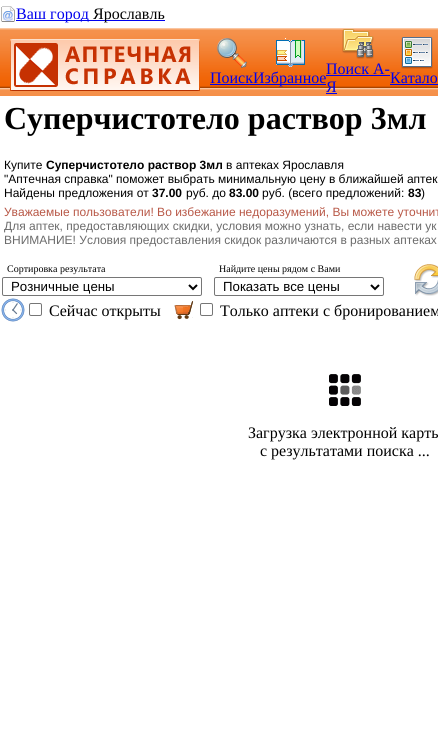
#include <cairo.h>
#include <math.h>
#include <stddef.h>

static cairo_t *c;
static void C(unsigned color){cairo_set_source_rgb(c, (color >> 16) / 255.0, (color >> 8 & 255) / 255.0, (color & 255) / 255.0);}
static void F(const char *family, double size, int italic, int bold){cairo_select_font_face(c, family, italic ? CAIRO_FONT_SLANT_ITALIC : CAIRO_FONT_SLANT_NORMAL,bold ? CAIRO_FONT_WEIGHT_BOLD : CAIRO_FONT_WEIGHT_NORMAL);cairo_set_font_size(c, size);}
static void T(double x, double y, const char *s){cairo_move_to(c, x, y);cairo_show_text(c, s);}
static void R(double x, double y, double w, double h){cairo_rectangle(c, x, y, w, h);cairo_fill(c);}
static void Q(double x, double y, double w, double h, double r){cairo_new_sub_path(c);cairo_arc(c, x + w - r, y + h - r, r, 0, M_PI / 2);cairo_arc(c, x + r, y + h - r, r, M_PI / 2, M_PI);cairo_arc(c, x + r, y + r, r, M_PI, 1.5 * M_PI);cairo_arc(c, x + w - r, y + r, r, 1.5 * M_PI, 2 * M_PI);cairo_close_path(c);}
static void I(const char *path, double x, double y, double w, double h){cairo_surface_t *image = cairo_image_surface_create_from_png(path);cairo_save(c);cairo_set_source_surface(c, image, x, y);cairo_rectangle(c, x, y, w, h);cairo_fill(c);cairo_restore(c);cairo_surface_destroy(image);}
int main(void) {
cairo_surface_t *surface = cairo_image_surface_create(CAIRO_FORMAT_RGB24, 438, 755);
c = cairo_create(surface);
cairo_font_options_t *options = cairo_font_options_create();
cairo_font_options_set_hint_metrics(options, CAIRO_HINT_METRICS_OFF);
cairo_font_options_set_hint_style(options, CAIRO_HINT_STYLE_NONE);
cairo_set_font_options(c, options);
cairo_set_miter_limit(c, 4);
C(0xffffff);
cairo_paint(c);
I("1.png",1,6,14,16);
C(0x0000ee);
R(16,20,149,1);
F("Liberation Serif",16,0,0);
T(16,19,"Ваш город");
C(0x000000);
T(93,19,"Ярославль");
I("2.png",0,28,438,68);
I("3.png",10,39,190,52);
I("4.png",276,38,29,29);
I("5.png",342,29,32,30);
C(0x0000ee);
T(326,74,"Поиск А-");
R(326,75,64,1);
T(326,92,"Я");
R(326,93,11,1);
I("6.png",217,38,30,30);
R(210,84,116,1);
T(210,83,"ПоискИзбранное");
I("7.png",401,37,32,32);
T(390,83,"Катало");
R(390,84,48,1);
F("Liberation Serif",32,0,1);
C(0x000000);
T(4,129,"Суперчистотело раствор 3мл");
F("Liberation Sans",12,0,0);
T(4,169,"Купите");
F("Liberation Sans",12,0,1);
T(46,169,"Суперчистотело раствор 3мл");
F("Liberation Sans",12,0,0);
T(226,169,"в аптеках Ярославля");
T(4,183,"\"Аптечная справка\" поможет выбрать минимальную цену в ближайшей аптек");
T(4,197,"Найдены предложения от");
F("Liberation Sans",12,0,1);
T(152,197,"37.00");
F("Liberation Sans",12,0,0);
T(186,197,"руб. до");
F("Liberation Sans",12,0,1);
T(229,197,"83.00");
F("Liberation Sans",12,0,0);
T(262,197,"руб. (всего предложений:");
F("Liberation Sans",12,0,1);
T(408,197,"83");
F("Liberation Sans",12,0,0);
T(421,197,")");
C(0xb85847);
T(4,216,"Уважаемые пользователи! Во избежание недоразумений, Вы можете уточнит");
C(0x6b6b6b);
T(4,230,"Для аптек, предоставляющих скидки, условия можно узнать, если навести ук");
T(4,244,"ВНИМАНИЕ! Условия предоставления скидок различаются в разных аптеках");
F("Liberation Serif",10,0,0);
C(0x000000);
T(7,272,"Сортировка результата");
Q(2.5,277.5,199,18,1.5);
C(0x767676);
cairo_set_line_width(c,1);
cairo_stroke(c);
cairo_new_path(c);
cairo_move_to(c,189,285);
cairo_line_to(c,193,289);
cairo_line_to(c,197,285);
C(0x000000);
cairo_set_line_width(c,2);
cairo_stroke(c);
F("Liberation Sans",13.25,0,0);
T(11,291,"Розничные цены");
F("Liberation Serif",10,0,0);
T(219,272,"Найдите цены рядом с Вами");
Q(214.5,277.5,169,18,1.5);
C(0x767676);
cairo_set_line_width(c,1);
cairo_stroke(c);
cairo_new_path(c);
cairo_move_to(c,371,285);
cairo_line_to(c,375,289);
cairo_line_to(c,379,285);
C(0x000000);
cairo_set_line_width(c,2);
cairo_stroke(c);
F("Liberation Sans",13.25,0,0);
T(223,291,"Показать все цены");
I("8.png",414,264,24,32);
I("9.png",1,298,24,24);
Q(29.5,303.5,12,12,1.5);
C(0x767676);
cairo_set_line_width(c,1);
cairo_stroke(c);
F("Liberation Serif",16,0,0);
C(0x000000);
T(49,316,"Сейчас открыты");
I("10.png",174,301,20,19);
Q(200.5,303.5,12,12,1.5);
C(0x767676);
cairo_stroke(c);
C(0x000000);
T(220,316,"Только аптеки с бронированием");
I("11.png",329,374,32,32);
T(248,438,"Загрузка электронной карты");
T(260,456,"с результатами поиска ...");
cairo_surface_write_to_png(surface, "o.png");
cairo_font_options_destroy(options);
cairo_destroy(c);
cairo_surface_destroy(surface);
return 0;
}
